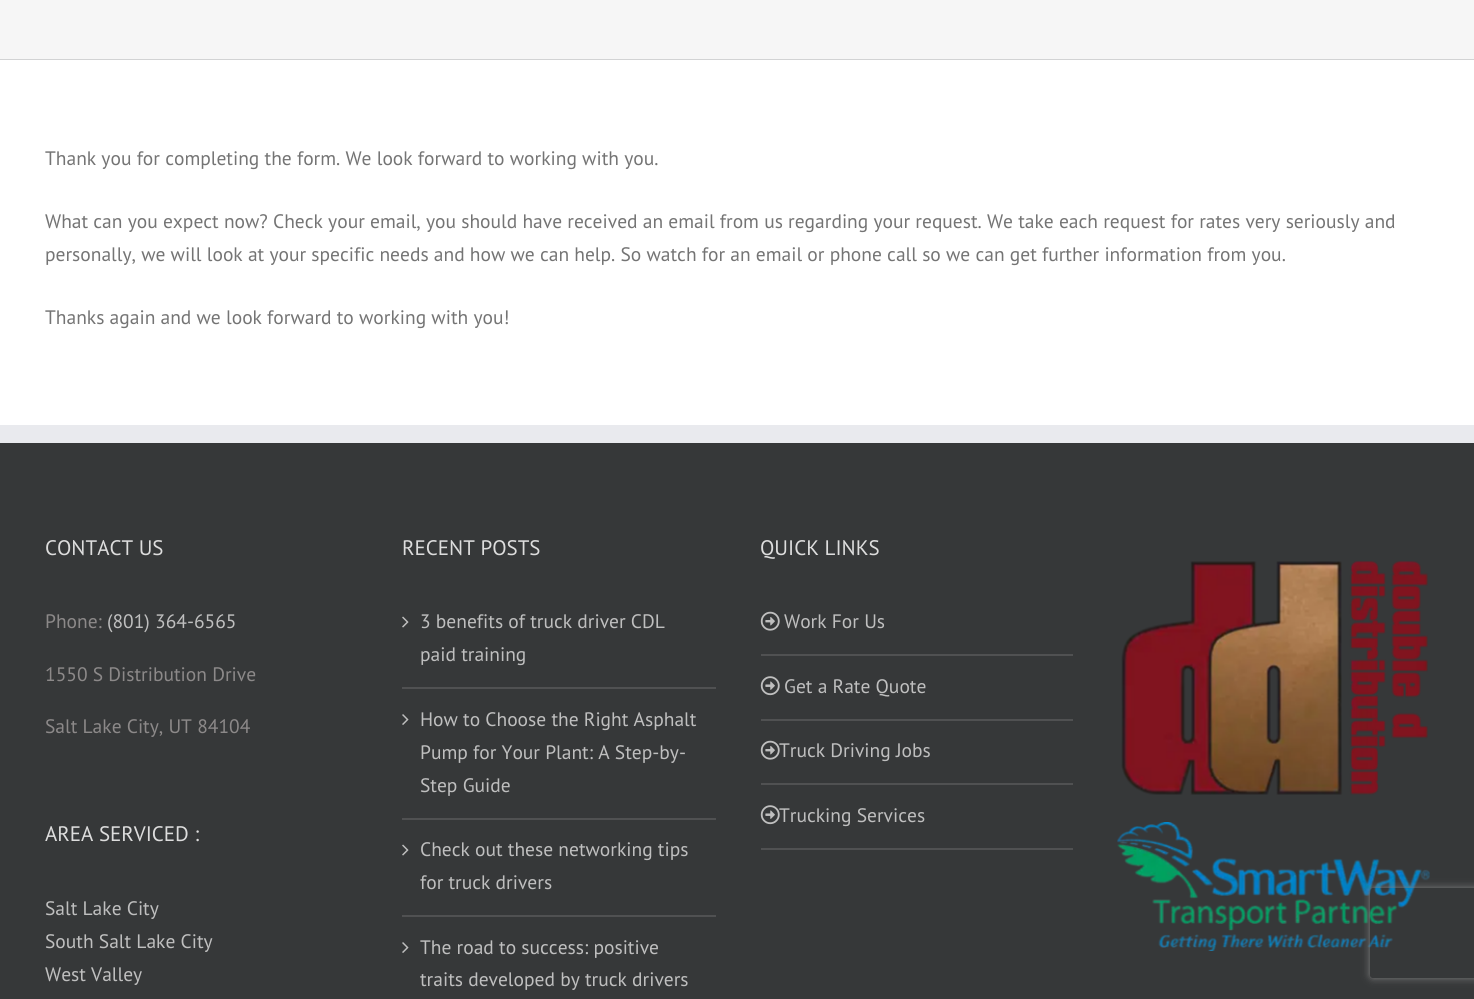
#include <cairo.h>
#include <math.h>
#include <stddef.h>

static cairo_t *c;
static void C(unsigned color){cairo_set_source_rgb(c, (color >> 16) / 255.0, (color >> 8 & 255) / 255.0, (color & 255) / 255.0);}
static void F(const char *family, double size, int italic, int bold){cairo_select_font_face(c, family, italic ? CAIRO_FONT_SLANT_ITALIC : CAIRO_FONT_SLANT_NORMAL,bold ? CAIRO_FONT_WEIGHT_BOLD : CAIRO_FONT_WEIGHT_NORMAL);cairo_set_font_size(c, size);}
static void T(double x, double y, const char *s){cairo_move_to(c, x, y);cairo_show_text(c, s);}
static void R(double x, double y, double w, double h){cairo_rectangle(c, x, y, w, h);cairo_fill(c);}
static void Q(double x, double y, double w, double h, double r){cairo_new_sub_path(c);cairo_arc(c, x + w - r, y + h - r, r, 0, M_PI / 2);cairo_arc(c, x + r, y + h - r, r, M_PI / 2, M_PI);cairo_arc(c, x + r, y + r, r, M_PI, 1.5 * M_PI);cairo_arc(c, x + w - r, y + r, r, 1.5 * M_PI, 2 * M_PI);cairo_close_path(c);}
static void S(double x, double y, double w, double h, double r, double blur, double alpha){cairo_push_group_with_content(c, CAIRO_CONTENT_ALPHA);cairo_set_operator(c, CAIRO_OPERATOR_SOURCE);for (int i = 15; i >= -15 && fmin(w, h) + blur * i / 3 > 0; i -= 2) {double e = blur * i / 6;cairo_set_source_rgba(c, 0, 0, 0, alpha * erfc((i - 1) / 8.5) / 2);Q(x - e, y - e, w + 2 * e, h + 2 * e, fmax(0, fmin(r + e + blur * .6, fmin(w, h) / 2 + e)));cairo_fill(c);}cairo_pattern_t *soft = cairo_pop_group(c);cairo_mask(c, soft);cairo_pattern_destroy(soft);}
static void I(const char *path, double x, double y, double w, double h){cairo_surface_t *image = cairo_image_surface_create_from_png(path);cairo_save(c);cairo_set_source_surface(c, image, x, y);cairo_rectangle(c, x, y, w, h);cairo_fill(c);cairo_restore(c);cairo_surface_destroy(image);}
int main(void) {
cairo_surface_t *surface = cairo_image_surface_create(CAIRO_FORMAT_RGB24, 1474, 999);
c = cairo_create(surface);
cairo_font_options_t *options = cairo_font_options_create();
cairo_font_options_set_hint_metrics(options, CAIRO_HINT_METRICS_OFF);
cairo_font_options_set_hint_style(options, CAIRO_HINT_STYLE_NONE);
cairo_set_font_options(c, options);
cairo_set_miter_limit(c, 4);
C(0xf6f6f6);
cairo_paint(c);
C(0xd2d3d4);
R(0,59,1474,1);
C(0xffffff);
R(0,60,1474,365);
F("PT Sans",19.5,0,0);
C(0x747474);
T(45,165,"Thank you for completing the form. We look forward to working with you.");
T(45,228,"What can you expect now? Check your email, you should have received an email from us regarding your request. We take each request for rates very seriously and");
T(45,261,"personally, we will look at your specific needs and how we can help. So watch for an email or phone call so we can get further information from you.");
T(45,324,"Thanks again and we look forward to working with you!");
C(0x363839);
R(0,443,1474,556);
C(0xe9eaee);
R(0,425,1474,18);
F("PT Sans",21,0,0);
C(0xdddddd);
T(45,555,"CONTACT US");
F("PT Sans",19.5,0,0);
C(0x8c8989);
T(45,628,"Phone:");
C(0xbfbfbf);
T(107,628,"(801) 364-6565");
C(0x8c8989);
T(45,681,"1550 S Distribution Drive");
T(45,733,"Salt Lake City, UT 84104");
F("PT Sans",21,0,0);
C(0xdddddd);
T(45,841,"AREA SERVICED :");
F("PT Sans",19.5,0,0);
C(0xbfbfbf);
T(45,915,"Salt Lake City");
T(45,948,"South Salt Lake City");
T(45,981,"West Valley");
F("PT Sans",21,0,0);
C(0xdddddd);
T(402,555,"RECENT POSTS");
C(0x505152);
R(402,687,314,2);
I("1.png",402,616,7,12);
F("PT Sans",19.5,0,0);
C(0xbfbfbf);
T(420,628,"3 benefits of truck driver CDL");
T(420,661,"paid training");
C(0x505152);
R(402,818,314,2);
I("2.png",402,714,7,11);
C(0xbfbfbf);
T(420,726,"How to Choose the Right Asphalt");
T(420,759,"Pump for Your Plant: A Step-by-");
T(420,792,"Step Guide");
C(0x505152);
R(402,915,314,2);
I("1.png",402,844,7,12);
C(0xbfbfbf);
T(420,856,"Check out these networking tips");
T(420,889,"for truck drivers");
I("2.png",402,942,7,11);
T(420,954,"The road to success: positive");
T(420,986,"traits developed by truck drivers");
F("PT Sans",21,0,0);
C(0xdddddd);
T(760,555,"QUICK LINKS");
C(0x505152);
R(761,654,312,2);
I("3.png",760,611,20,20);
F("PT Sans",19.5,0,0);
C(0xbfbfbf);
T(784,628,"Work For Us");
C(0x505152);
R(761,719,312,2);
I("4.png",760,676,20,20);
C(0xbfbfbf);
T(784,693,"Get a Rate Quote");
C(0x505152);
R(761,783,312,2);
I("3.png",760,740,20,20);
C(0xbfbfbf);
T(779,757,"Truck Driving Jobs");
C(0x505152);
R(761,848,312,2);
I("4.png",760,805,20,20);
C(0xbfbfbf);
T(779,822,"Trucking Services");
I("5.png",1121,561,307,234);
I("6.png",1117,822,313,129);
cairo_save(c);
cairo_set_fill_rule(c,CAIRO_FILL_RULE_EVEN_ODD);
cairo_new_path(c);
cairo_move_to(c,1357,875);
cairo_line_to(c,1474,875);
cairo_line_to(c,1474,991);
cairo_line_to(c,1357,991);
cairo_close_path(c);
cairo_move_to(c,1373,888);
cairo_line_to(c,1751,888);
cairo_curve_to(c,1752.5,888,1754,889.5,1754,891);
cairo_line_to(c,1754,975);
cairo_curve_to(c,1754,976.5,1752.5,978,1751,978);
cairo_line_to(c,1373,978);
cairo_curve_to(c,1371.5,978,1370,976.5,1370,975);
cairo_line_to(c,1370,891);
cairo_curve_to(c,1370,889.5,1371.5,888,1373,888);
cairo_close_path(c);
cairo_clip(c);
C(0x808080);
S(1370,888,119,90,3,4,1);
cairo_restore(c);
cairo_surface_write_to_png(surface, "o.png");
cairo_font_options_destroy(options);
cairo_destroy(c);
cairo_surface_destroy(surface);
return 0;
}
